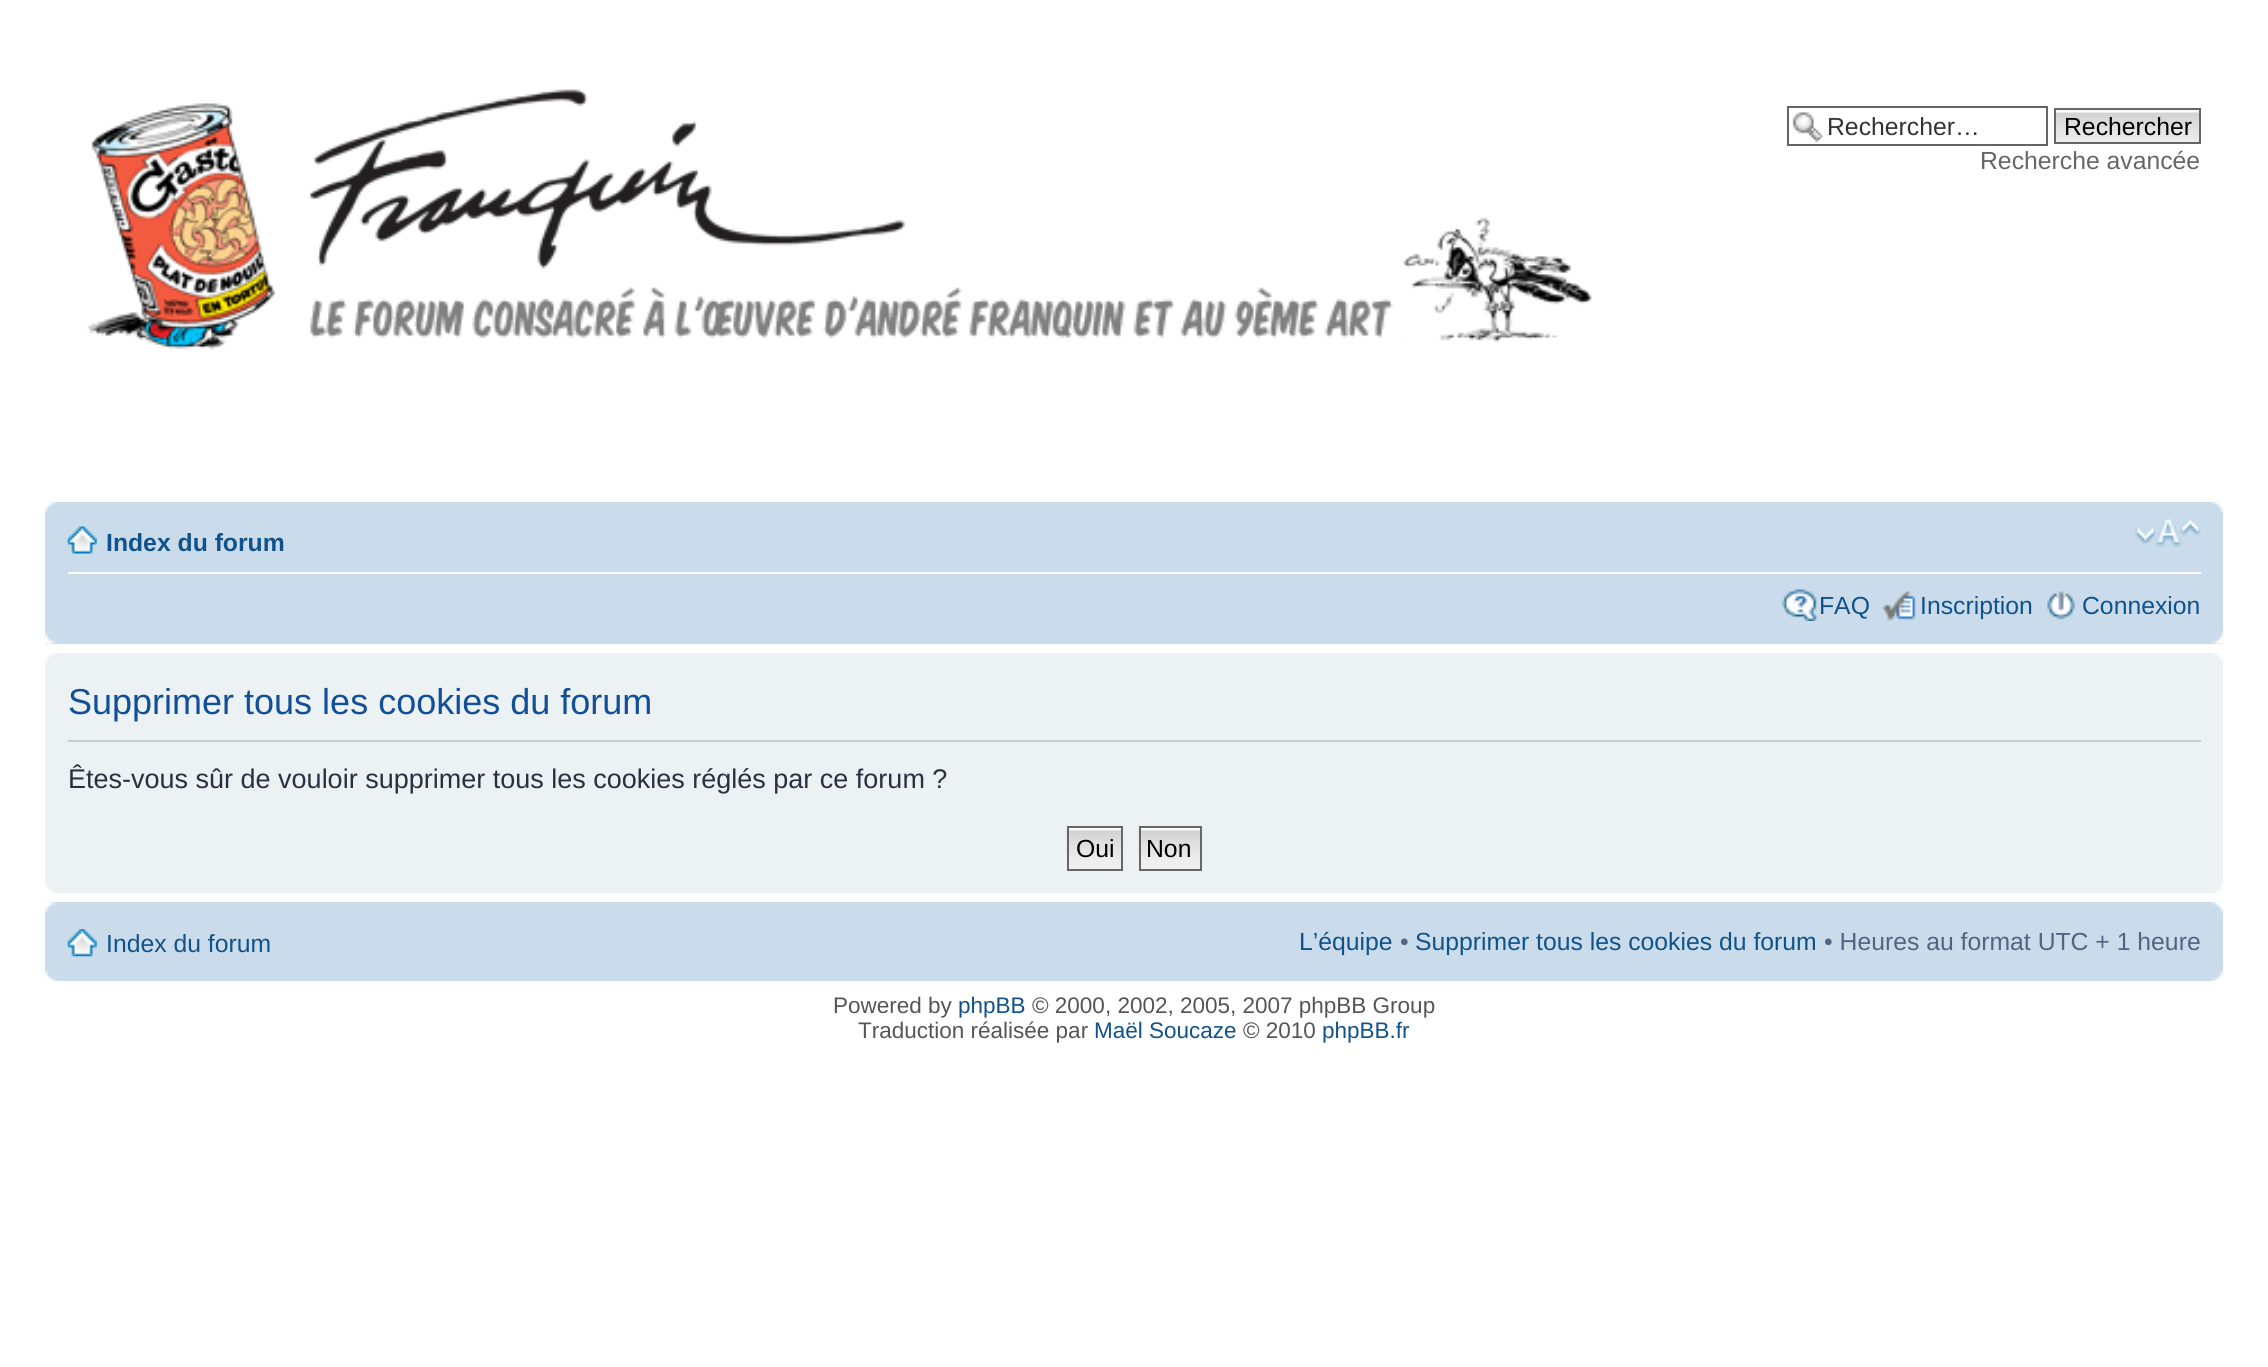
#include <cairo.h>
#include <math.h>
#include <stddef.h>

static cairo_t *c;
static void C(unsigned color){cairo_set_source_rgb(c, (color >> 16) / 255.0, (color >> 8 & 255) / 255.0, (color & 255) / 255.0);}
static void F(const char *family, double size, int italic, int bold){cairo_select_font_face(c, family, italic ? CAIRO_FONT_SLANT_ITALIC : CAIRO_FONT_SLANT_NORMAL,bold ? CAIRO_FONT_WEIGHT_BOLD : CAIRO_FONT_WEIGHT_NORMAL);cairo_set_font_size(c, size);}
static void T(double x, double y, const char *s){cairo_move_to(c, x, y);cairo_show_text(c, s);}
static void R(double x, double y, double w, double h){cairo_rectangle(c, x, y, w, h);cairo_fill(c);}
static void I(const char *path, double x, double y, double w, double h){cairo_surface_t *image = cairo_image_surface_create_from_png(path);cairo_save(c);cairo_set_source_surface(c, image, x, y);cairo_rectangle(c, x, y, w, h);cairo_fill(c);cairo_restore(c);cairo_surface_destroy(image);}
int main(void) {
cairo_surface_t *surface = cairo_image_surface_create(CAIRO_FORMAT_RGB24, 2268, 1367);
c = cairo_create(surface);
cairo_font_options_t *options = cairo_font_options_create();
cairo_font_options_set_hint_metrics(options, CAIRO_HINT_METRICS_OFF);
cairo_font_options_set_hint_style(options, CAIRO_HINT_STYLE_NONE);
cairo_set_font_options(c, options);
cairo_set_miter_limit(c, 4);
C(0xffffff);
cairo_paint(c);
I("1.png",87,89,1505,261);
I("2.png",1792,112,32,30);
cairo_rectangle(c,1788,107,259,38);
C(0x666666);
cairo_stroke(c);
F("Liberation Sans",24.75,0,0);
C(0x333333);
T(1827,135,"Rechercher…");
C(0xfafafa);
R(2056,110,143,2);
I("3.png",2056,112,143,30);
cairo_rectangle(c,2055,109,145,34);
C(0x666666);
cairo_stroke(c);
C(0x000000);
T(2064,135,"Rechercher");
C(0x666666);
T(1980,169,"Recherche avancée");
C(0xcadceb);
R(45,502,2178,142);
I("4.png",45,502,12,11);
I("5.png",2211,502,12,11);
C(0xffffff);
R(68,572,2133,2);
I("6.png",67,526,30,28);
F("Liberation Sans",24.75,0,1);
C(0x105289);
T(106,551,"Index du forum");
I("7.png",2135,519,66,29);
I("8.png",1782,589,36,32);
F("Liberation Sans",24.75,0,0);
T(1819,614,"FAQ");
I("9.png",1882,591,34,30);
T(1920,614,"Inscription");
I("10.png",2047,591,29,29);
T(2082,614,"Connexion");
I("11.png",45,632,12,12);
I("12.png",2211,632,12,12);
C(0xecf1f3);
R(45,653,2178,240);
I("13.png",45,653,11,10);
I("14.png",2213,653,10,10);
C(0xcccccc);
R(68,740,2133,2);
F("Liberation Sans",36,0,0);
C(0x115098);
T(68,714,"Supprimer tous les cookies du forum");
F("Liberation Sans",27,0,0);
C(0x28313f);
T(68,788,"Êtes-vous sûr de vouloir supprimer tous les cookies réglés par ce forum ?");
I("15.png",1066,828,55,43);
cairo_rectangle(c,1068,827,54,43);
C(0x666666);
cairo_stroke(c);
F("Liberation Sans",24.75,0,0);
C(0x000000);
T(1076,857,"Oui");
I("16.png",1138,828,62,43);
cairo_rectangle(c,1140,827,61,43);
C(0x666666);
cairo_stroke(c);
C(0x000000);
T(1146,857,"Non");
I("17.png",45,882,11,11);
I("18.png",2213,882,10,11);
C(0xcadceb);
R(45,902,2178,79);
I("19.png",45,902,12,12);
I("20.png",2211,902,12,12);
I("21.png",67,929,30,28);
C(0x105289);
T(106,952,"Index du forum");
T(1299,950,"L’équipe");
C(0x536482);
T(1400,950,"•");
C(0x105289);
T(1415,950,"Supprimer tous les cookies du forum");
C(0x536482);
T(1824,950,"• Heures au format UTC + 1 heure");
I("22.png",45,970,12,11);
I("23.png",2211,970,12,11);
F("Liberation Sans",22.5,0,0);
C(0x555555);
T(833,1013,"Powered by");
C(0x105289);
T(958,1013,"phpBB");
C(0x555555);
T(1032,1013,"© 2000, 2002, 2005, 2007 phpBB Group");
T(858,1038,"Traduction réalisée par");
C(0x105289);
T(1094,1038,"Maël Soucaze");
C(0x555555);
T(1243,1038,"© 2010");
C(0x105289);
T(1322,1038,"phpBB.fr");
cairo_surface_write_to_png(surface, "o.png");
cairo_font_options_destroy(options);
cairo_destroy(c);
cairo_surface_destroy(surface);
return 0;
}
